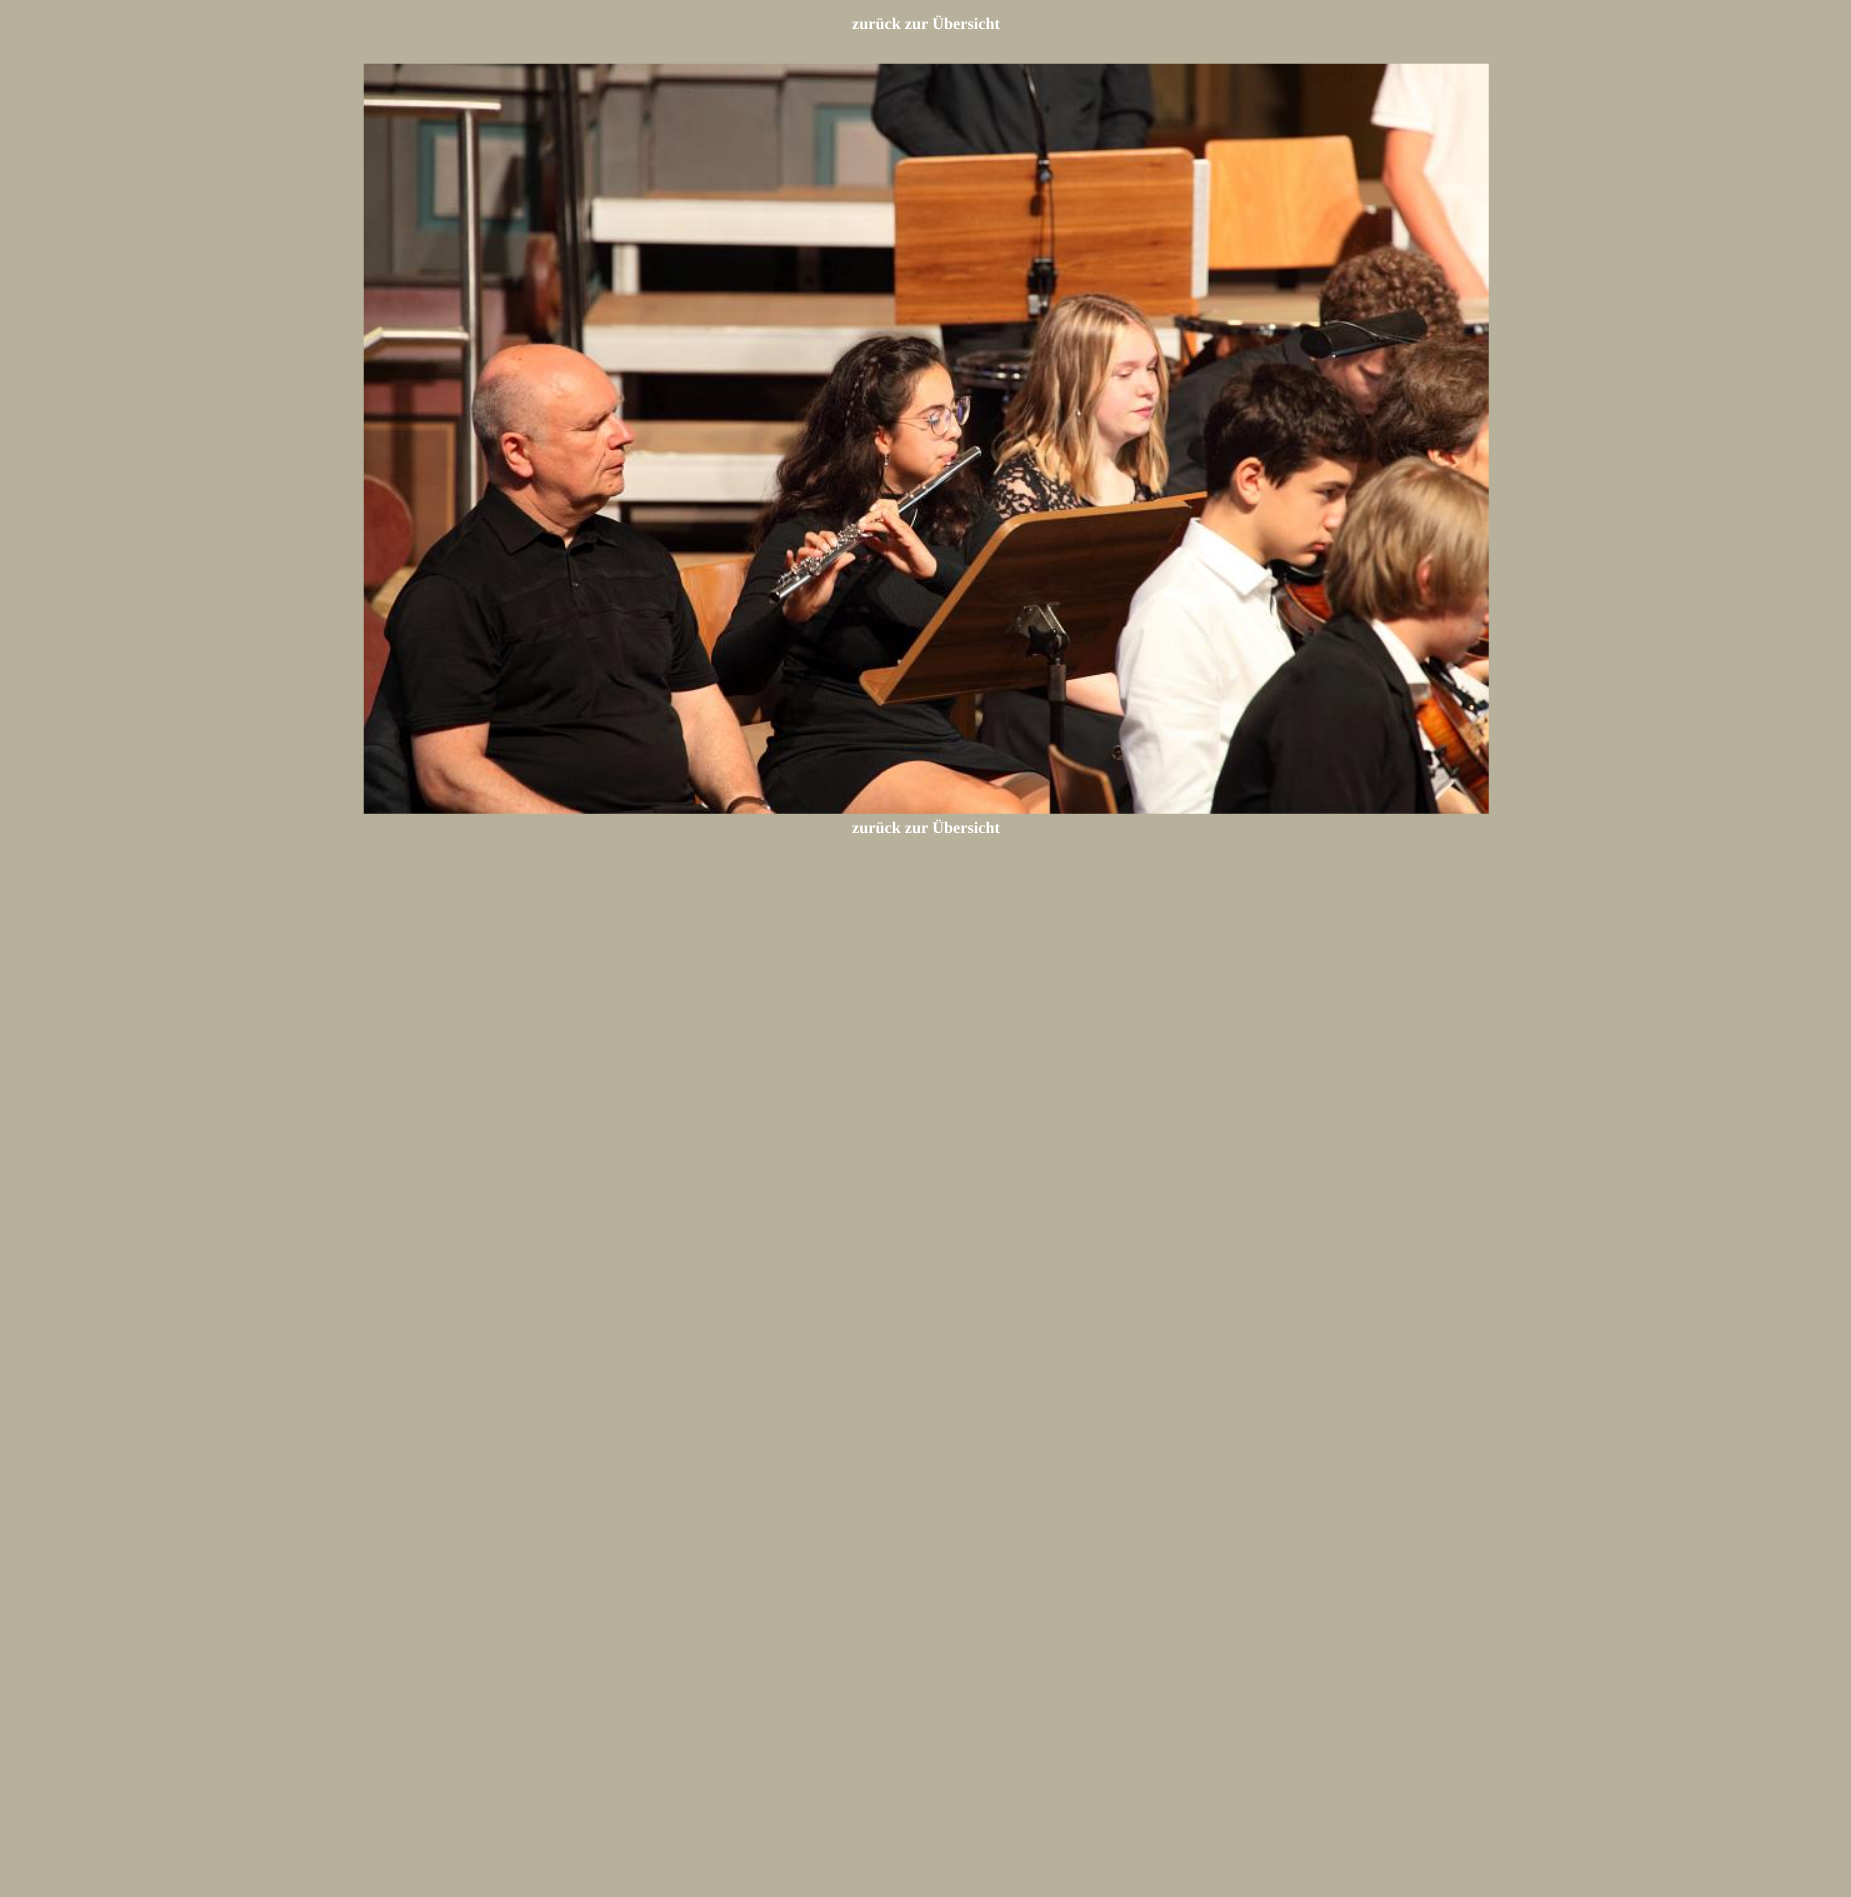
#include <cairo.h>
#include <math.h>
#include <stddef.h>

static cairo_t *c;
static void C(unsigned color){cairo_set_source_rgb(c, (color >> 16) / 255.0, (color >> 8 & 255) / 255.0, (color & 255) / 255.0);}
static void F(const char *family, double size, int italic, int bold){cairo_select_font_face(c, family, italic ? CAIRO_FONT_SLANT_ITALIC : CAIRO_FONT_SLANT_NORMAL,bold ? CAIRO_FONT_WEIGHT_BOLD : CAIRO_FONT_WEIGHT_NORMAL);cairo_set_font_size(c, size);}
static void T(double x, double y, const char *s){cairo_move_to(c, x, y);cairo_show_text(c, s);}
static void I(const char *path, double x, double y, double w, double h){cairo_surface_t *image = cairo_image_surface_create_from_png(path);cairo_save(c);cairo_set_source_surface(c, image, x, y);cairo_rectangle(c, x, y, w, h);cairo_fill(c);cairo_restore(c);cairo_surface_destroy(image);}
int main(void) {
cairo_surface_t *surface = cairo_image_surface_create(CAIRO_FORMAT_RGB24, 1851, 1897);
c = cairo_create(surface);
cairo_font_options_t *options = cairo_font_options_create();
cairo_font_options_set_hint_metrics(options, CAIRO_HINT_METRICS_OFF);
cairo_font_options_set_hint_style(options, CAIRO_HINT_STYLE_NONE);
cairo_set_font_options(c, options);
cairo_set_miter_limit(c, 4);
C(0xb7b19b);
cairo_paint(c);
F("Liberation Serif",16.25,0,1);
C(0xffffff);
T(852,29,"zurück zur Übersicht");
I("1.png",363,63,1126,751);
T(852,833,"zurück zur Übersicht");
cairo_surface_write_to_png(surface, "o.png");
cairo_font_options_destroy(options);
cairo_destroy(c);
cairo_surface_destroy(surface);
return 0;
}
